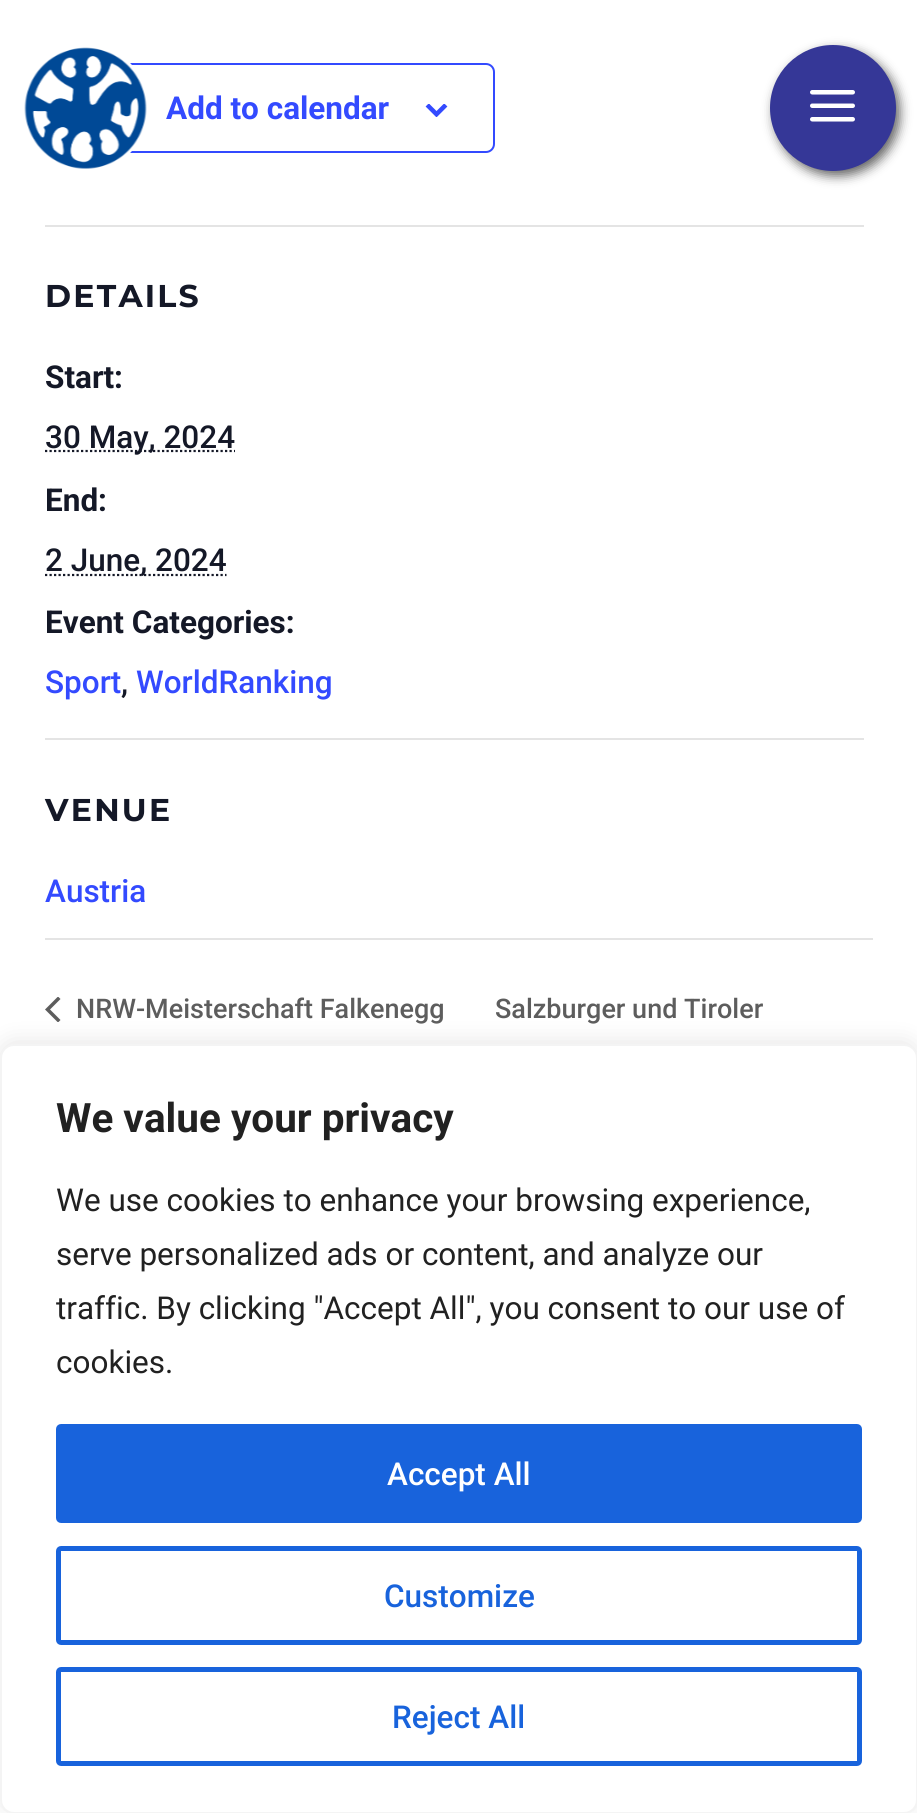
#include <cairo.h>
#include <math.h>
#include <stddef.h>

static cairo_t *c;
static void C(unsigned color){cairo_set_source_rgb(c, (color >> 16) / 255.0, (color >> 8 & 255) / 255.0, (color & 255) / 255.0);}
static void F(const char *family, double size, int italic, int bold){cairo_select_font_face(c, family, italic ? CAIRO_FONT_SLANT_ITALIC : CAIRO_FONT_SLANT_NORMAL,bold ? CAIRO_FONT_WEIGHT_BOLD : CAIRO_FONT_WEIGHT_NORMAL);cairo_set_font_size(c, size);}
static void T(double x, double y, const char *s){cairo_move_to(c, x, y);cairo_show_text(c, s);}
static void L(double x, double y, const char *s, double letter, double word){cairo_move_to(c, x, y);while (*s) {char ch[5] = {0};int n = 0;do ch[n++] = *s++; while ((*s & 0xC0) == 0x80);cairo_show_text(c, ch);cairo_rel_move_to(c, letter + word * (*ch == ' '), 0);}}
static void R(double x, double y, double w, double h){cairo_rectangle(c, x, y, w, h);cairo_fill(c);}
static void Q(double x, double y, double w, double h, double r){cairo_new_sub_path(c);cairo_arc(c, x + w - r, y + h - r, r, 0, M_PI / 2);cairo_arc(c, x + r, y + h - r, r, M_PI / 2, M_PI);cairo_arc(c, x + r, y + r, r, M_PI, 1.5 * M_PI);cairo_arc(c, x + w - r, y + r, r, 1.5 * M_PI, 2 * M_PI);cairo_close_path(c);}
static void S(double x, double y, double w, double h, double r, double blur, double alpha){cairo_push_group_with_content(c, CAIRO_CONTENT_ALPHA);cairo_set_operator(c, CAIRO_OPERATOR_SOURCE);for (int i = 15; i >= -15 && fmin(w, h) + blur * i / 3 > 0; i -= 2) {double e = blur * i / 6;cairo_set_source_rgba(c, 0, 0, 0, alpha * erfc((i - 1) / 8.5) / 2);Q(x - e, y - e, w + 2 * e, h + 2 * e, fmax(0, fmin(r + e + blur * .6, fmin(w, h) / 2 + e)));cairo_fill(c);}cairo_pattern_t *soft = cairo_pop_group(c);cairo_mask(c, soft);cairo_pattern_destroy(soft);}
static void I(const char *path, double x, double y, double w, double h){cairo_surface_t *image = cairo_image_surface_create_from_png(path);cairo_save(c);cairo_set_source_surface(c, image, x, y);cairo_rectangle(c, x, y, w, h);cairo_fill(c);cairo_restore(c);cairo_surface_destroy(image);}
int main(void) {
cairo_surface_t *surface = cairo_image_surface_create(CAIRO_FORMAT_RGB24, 917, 1813);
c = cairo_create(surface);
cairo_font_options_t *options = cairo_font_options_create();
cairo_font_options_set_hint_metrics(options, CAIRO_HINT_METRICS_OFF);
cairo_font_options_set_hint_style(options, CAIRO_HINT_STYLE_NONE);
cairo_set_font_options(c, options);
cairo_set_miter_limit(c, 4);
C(0xffffff);
cairo_paint(c);
Q(46,64,448,88,8);
C(0x334aff);
cairo_stroke(c);
C(0xffffff);
cairo_arc(c,86,108,63,0,2 * M_PI);
cairo_fill(c);
I("1.png",24,47,123,122);
C(0x000000);
S(774,50,126,126,63,5.5,.6);
C(0x353797);
cairo_arc(c,833,108,63,0,2 * M_PI);
cairo_fill(c);
I("2.png",810,90,45,32);
F("Roboto",31.5,0,1);
C(0x334aff);
T(166,119,"Add to calendar");
I("3.png",425,104,23,13);
C(0xe4e4e4);
R(45,225,819,2);
F("Montserrat",31.5,0,1);
C(0x141827);
L(45,307,"DETAILS",2.25,0);
F("Roboto",31.5,0,1);
T(45,388,"Start:");
cairo_new_path(c);
cairo_move_to(c,45,451);
cairo_line_to(c,235,451);
cairo_set_line_width(c,2.2);
cairo_set_dash(c,(double[]){2.25,2.25},2,0);
cairo_stroke(c);
F("Roboto Medium",31.5,0,0);
T(45,448,"30 May, 2024");
F("Roboto",31.5,0,1);
T(45,511,"End:");
cairo_new_path(c);
cairo_move_to(c,45,575);
cairo_line_to(c,226.5,575);
cairo_stroke(c);
F("Roboto Medium",31.5,0,0);
T(45,571,"2 June, 2024");
F("Roboto",31.5,0,1);
T(45,633,"Event Categories:");
F("Roboto Medium",31.5,0,0);
C(0x334aff);
T(45,693,"Sport");
C(0x141827);
T(121,693,",");
C(0x334aff);
T(136,693,"WorldRanking");
C(0xe4e4e4);
R(45,738,819,2);
F("Montserrat",31.5,0,1);
C(0x141827);
L(45,821,"VENUE",2.25,0);
F("Roboto Medium",31.5,0,0);
C(0x334aff);
T(45,902,"Austria");
C(0xe4e4e4);
R(45,938,828,2);
cairo_save(c);
cairo_rectangle(c,45,997,16,25);
cairo_clip(c);
C(0x5d5d5d);
cairo_new_path(c);
cairo_move_to(c,60.5,1020);
cairo_line_to(c,58,1022.5);
cairo_line_to(c,45,1009.5);
cairo_line_to(c,58,996.5);
cairo_line_to(c,60.5,999);
cairo_line_to(c,50,1009.5);
cairo_close_path(c);
cairo_fill(c);
cairo_restore(c);
F("Roboto Medium",27,0,0);
C(0x5d5d5d);
T(76,1018,"NRW-Meisterschaft Falkenegg");
T(495,1018,"Salzburger und Tiroler");
C(0xacabab);
S(0,1042,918,769,14,11,.3);
C(0xffffff);
Q(1,1045,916,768,13);
cairo_fill_preserve(c);
C(0xf4f4f4);
cairo_set_line_width(c,2);
cairo_set_dash(c,NULL,0,0);
cairo_stroke(c);
F("Roboto",40.5,0,1);
C(0x212121);
T(56,1132,"We value your privacy");
F("Roboto",31.5,0,0);
T(56,1211,"We use cookies to enhance your browsing experience,");
T(56,1265,"serve personalized ads or content, and analyze our");
T(56,1319,"traffic. By clicking \"Accept All\", you consent to our use of");
T(56,1373,"cookies.");
C(0x1863dc);
Q(58.5,1426.5,801,94,2.5);
cairo_fill_preserve(c);
cairo_set_line_width(c,5);
cairo_stroke(c);
F("Roboto Medium",31.5,0,0);
C(0xffffff);
T(387,1485,"Accept All");
Q(58.5,1548.5,801,94,2.5);
C(0x1863dc);
cairo_stroke(c);
T(384,1607,"Customize");
Q(58.5,1669.5,801,94,2.5);
cairo_stroke(c);
T(392,1728,"Reject All");
cairo_surface_write_to_png(surface, "o.png");
cairo_font_options_destroy(options);
cairo_destroy(c);
cairo_surface_destroy(surface);
return 0;
}
